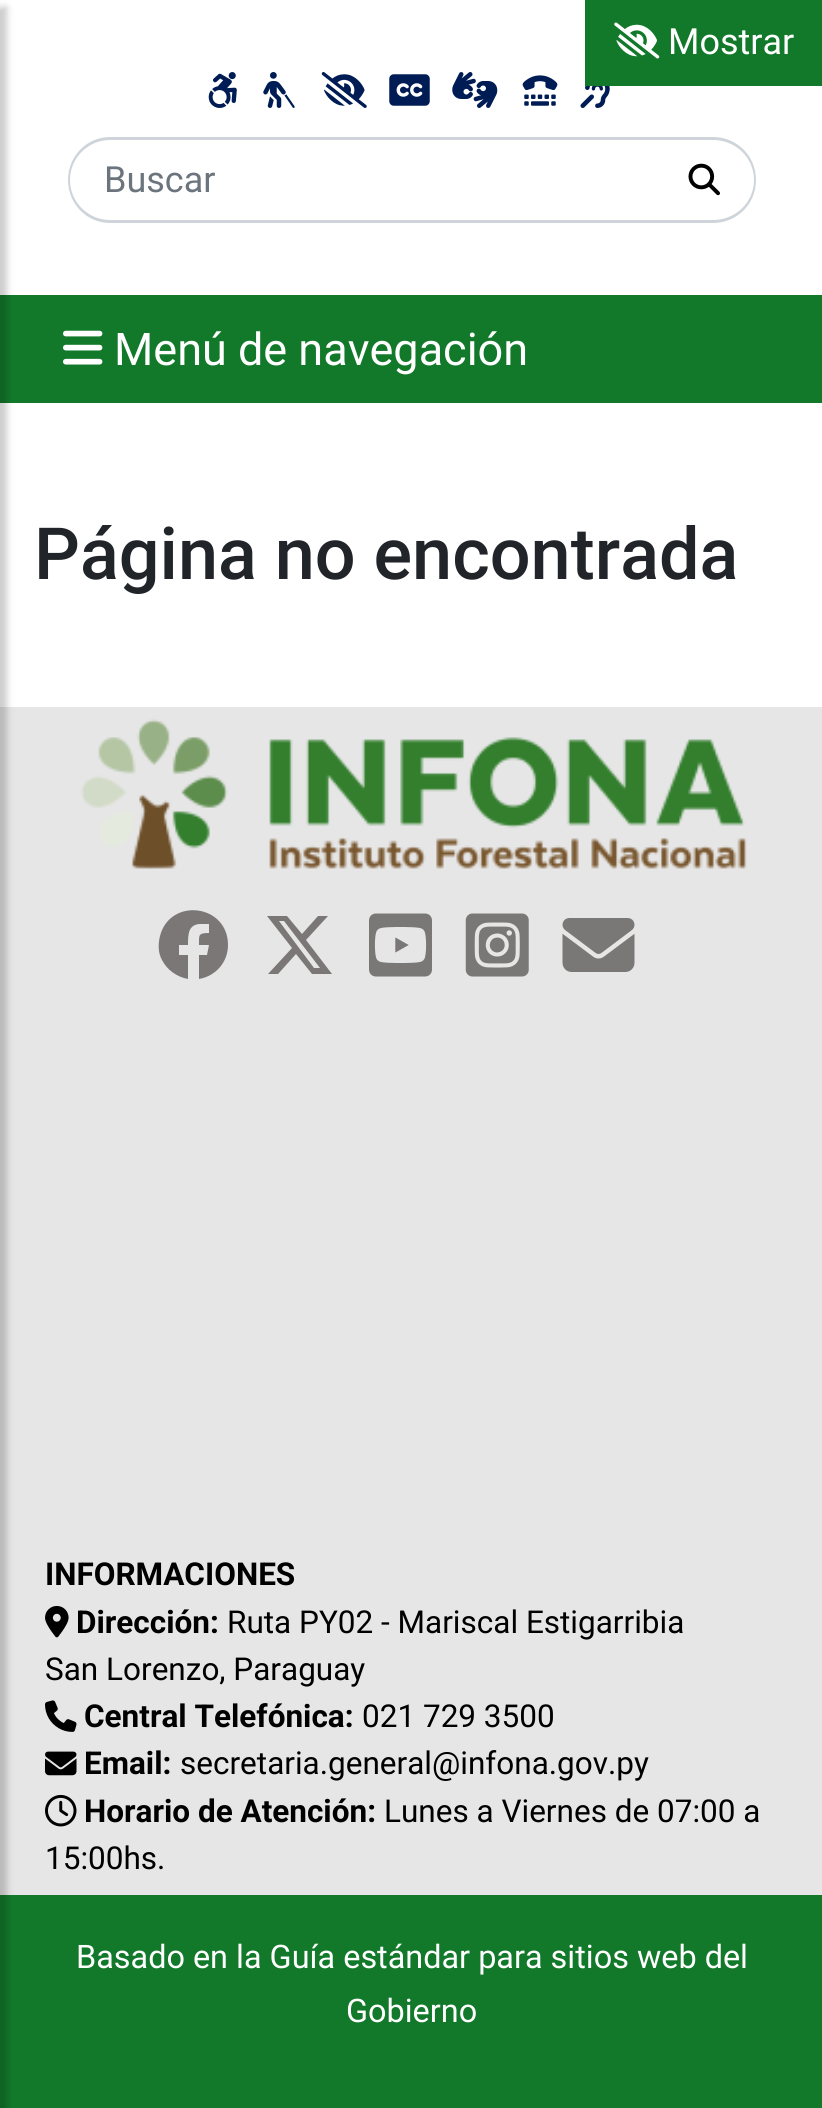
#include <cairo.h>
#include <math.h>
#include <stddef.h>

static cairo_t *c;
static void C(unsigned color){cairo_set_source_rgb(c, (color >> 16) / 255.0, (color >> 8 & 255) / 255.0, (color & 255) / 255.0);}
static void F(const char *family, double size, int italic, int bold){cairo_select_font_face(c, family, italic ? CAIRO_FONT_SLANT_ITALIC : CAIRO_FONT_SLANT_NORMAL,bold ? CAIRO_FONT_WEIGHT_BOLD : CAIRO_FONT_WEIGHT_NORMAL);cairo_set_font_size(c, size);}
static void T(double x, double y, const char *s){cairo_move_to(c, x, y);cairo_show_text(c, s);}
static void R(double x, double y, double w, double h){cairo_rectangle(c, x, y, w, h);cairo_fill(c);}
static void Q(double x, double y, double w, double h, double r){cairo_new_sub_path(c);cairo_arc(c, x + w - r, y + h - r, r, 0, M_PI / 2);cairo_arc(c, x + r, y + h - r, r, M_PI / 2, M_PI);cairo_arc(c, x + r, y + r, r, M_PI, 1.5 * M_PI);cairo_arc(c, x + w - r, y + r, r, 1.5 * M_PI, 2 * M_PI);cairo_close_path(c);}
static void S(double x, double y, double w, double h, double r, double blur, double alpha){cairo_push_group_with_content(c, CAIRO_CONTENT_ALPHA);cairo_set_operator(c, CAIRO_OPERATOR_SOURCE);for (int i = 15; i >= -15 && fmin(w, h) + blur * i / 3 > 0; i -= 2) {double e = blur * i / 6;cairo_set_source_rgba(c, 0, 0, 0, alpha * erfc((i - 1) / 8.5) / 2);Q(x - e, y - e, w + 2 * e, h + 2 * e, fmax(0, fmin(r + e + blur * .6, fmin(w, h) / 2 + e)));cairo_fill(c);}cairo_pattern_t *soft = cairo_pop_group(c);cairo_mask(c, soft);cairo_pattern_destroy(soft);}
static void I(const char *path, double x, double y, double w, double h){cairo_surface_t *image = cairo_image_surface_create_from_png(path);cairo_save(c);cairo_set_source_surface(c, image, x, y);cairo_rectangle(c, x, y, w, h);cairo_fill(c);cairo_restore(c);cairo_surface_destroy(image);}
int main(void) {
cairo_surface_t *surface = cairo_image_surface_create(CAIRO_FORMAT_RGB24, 822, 2108);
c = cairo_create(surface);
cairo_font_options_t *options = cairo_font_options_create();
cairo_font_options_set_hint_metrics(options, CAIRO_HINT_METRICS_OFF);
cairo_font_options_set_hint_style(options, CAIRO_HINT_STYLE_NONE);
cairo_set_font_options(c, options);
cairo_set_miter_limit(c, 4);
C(0xffffff);
cairo_paint(c);
C(0x12792a);
R(0,295,822,108);
C(0xe6e6e6);
R(0,707,822,1188);
C(0x12792a);
R(0,1895,822,213);
C(0x000000);
S(-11,7,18,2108,0,3.5,.2);
C(0x12792a);
R(585,0,237,86);
I("1.png",614,22,46,37);
F("Roboto",36,0,0);
C(0xffffff);
T(668,54,"Mostrar");
I("2.png",208,72,29,36);
I("3.png",263,72,32,36);
I("4.png",321,72,46,36);
I("5.png",389,74,41,32);
I("6.png",452,72,46,36);
I("7.png",522,75,36,31);
I("8.png",580,86,30,22);
C(0xced4da);
cairo_set_fill_rule(c,CAIRO_FILL_RULE_EVEN_ODD);
cairo_new_path(c);
cairo_move_to(c,110,137);
cairo_line_to(c,657,137);
cairo_line_to(c,657,223);
cairo_line_to(c,110,223);
cairo_curve_to(c,87,223,68,204,68,180);
cairo_curve_to(c,68,156,87,137,110,137);
cairo_close_path(c);
cairo_move_to(c,110,140);
cairo_line_to(c,657,140);
cairo_line_to(c,657,220);
cairo_line_to(c,110,220);
cairo_curve_to(c,88,220,70,202,70,180);
cairo_curve_to(c,70,158,88,140,110,140);
cairo_close_path(c);
cairo_fill(c);
C(0x6c757d);
T(104,192,"Buscar");
C(0xced4da);
cairo_new_path(c);
cairo_move_to(c,655,137);
cairo_line_to(c,713,137);
cairo_curve_to(c,737,137,756,156,756,180);
cairo_curve_to(c,756,204,737,223,713,223);
cairo_line_to(c,655,223);
cairo_close_path(c);
cairo_move_to(c,655,140);
cairo_line_to(c,713,140);
cairo_curve_to(c,736,140,754,158,754,180);
cairo_curve_to(c,754,202,736,220,713,220);
cairo_line_to(c,655,220);
cairo_close_path(c);
cairo_fill(c);
I("9.png",688,163,32,33);
I("10.png",63,330,40,35);
F("Roboto",45,0,0);
C(0xffffff);
T(114,365,"Menú de navegación");
F("Roboto Medium",72,0,0);
C(0x212529);
T(34,579,"Página no encontrada");
I("11.png",81,719,666,150);
C(0x7b7777);
cairo_set_fill_rule(c,CAIRO_FILL_RULE_WINDING);
cairo_new_path(c);
cairo_move_to(c,228,945);
cairo_curve_to(c,228,904,170,897,160,936);
cairo_curve_to(c,158,944,158,953,162,960);
cairo_curve_to(c,167,970,177,977,188,979);
cairo_line_to(c,188,955);
cairo_line_to(c,179,955);
cairo_line_to(c,179,945);
cairo_line_to(c,188,945);
cairo_curve_to(c,188,934,188,923,203,924);
cairo_line_to(c,209,924);
cairo_line_to(c,209,933);
cairo_curve_to(c,198,933,199,935,199,945);
cairo_line_to(c,209,945);
cairo_line_to(c,207,955);
cairo_line_to(c,199,955);
cairo_line_to(c,199,979);
cairo_curve_to(c,216,976,228,962,228,945);
cairo_close_path(c);
cairo_fill(c);
cairo_new_path(c);
cairo_move_to(c,318,916);
cairo_line_to(c,328,916);
cairo_line_to(c,306,940);
cairo_line_to(c,332,974);
cairo_line_to(c,312,974);
cairo_line_to(c,296,954);
cairo_line_to(c,278,974);
cairo_line_to(c,268,974);
cairo_line_to(c,292,948);
cairo_line_to(c,267,916);
cairo_line_to(c,287,916);
cairo_line_to(c,302,934);
cairo_close_path(c);
cairo_move_to(c,314,968);
cairo_line_to(c,320,968);
cairo_line_to(c,284,921);
cairo_line_to(c,279,921);
cairo_close_path(c);
cairo_fill(c);
I("12.png",369,913,63,64);
I("13.png",465,913,64,64);
I("14.png",562,918,73,54);
F("Roboto",31.5,0,1);
C(0x000000);
T(45,1585,"INFORMACIONES");
I("15.png",45,1605,24,33);
T(76,1633,"Dirección:");
F("Roboto",31.5,0,0);
T(227,1633,"Ruta PY02 - Mariscal Estigarribia");
T(45,1680,"San Lorenzo, Paraguay");
I("16.png",45,1700,32,32);
F("Roboto",31.5,0,1);
T(84,1727,"Central Telefónica:");
F("Roboto",31.5,0,0);
T(362,1727,"021 729 3500");
I("17.png",45,1751,32,25);
F("Roboto",31.5,0,1);
T(84,1774,"Email:");
F("Roboto",31.5,0,0);
T(180,1774,"secretaria.general@infona.gov.py");
I("18.png",45,1794,32,33);
F("Roboto",31.5,0,1);
T(84,1822,"Horario de Atención:");
F("Roboto",31.5,0,0);
T(384,1822,"Lunes a Viernes de 07:00 a");
T(45,1869,"15:00hs.");
F("Roboto",32.4,0,0);
C(0xffffff);
T(76,1968,"Basado en la Guía estándar para sitios web del");
T(346,2022,"Gobierno");
cairo_surface_write_to_png(surface, "o.png");
cairo_font_options_destroy(options);
cairo_destroy(c);
cairo_surface_destroy(surface);
return 0;
}
